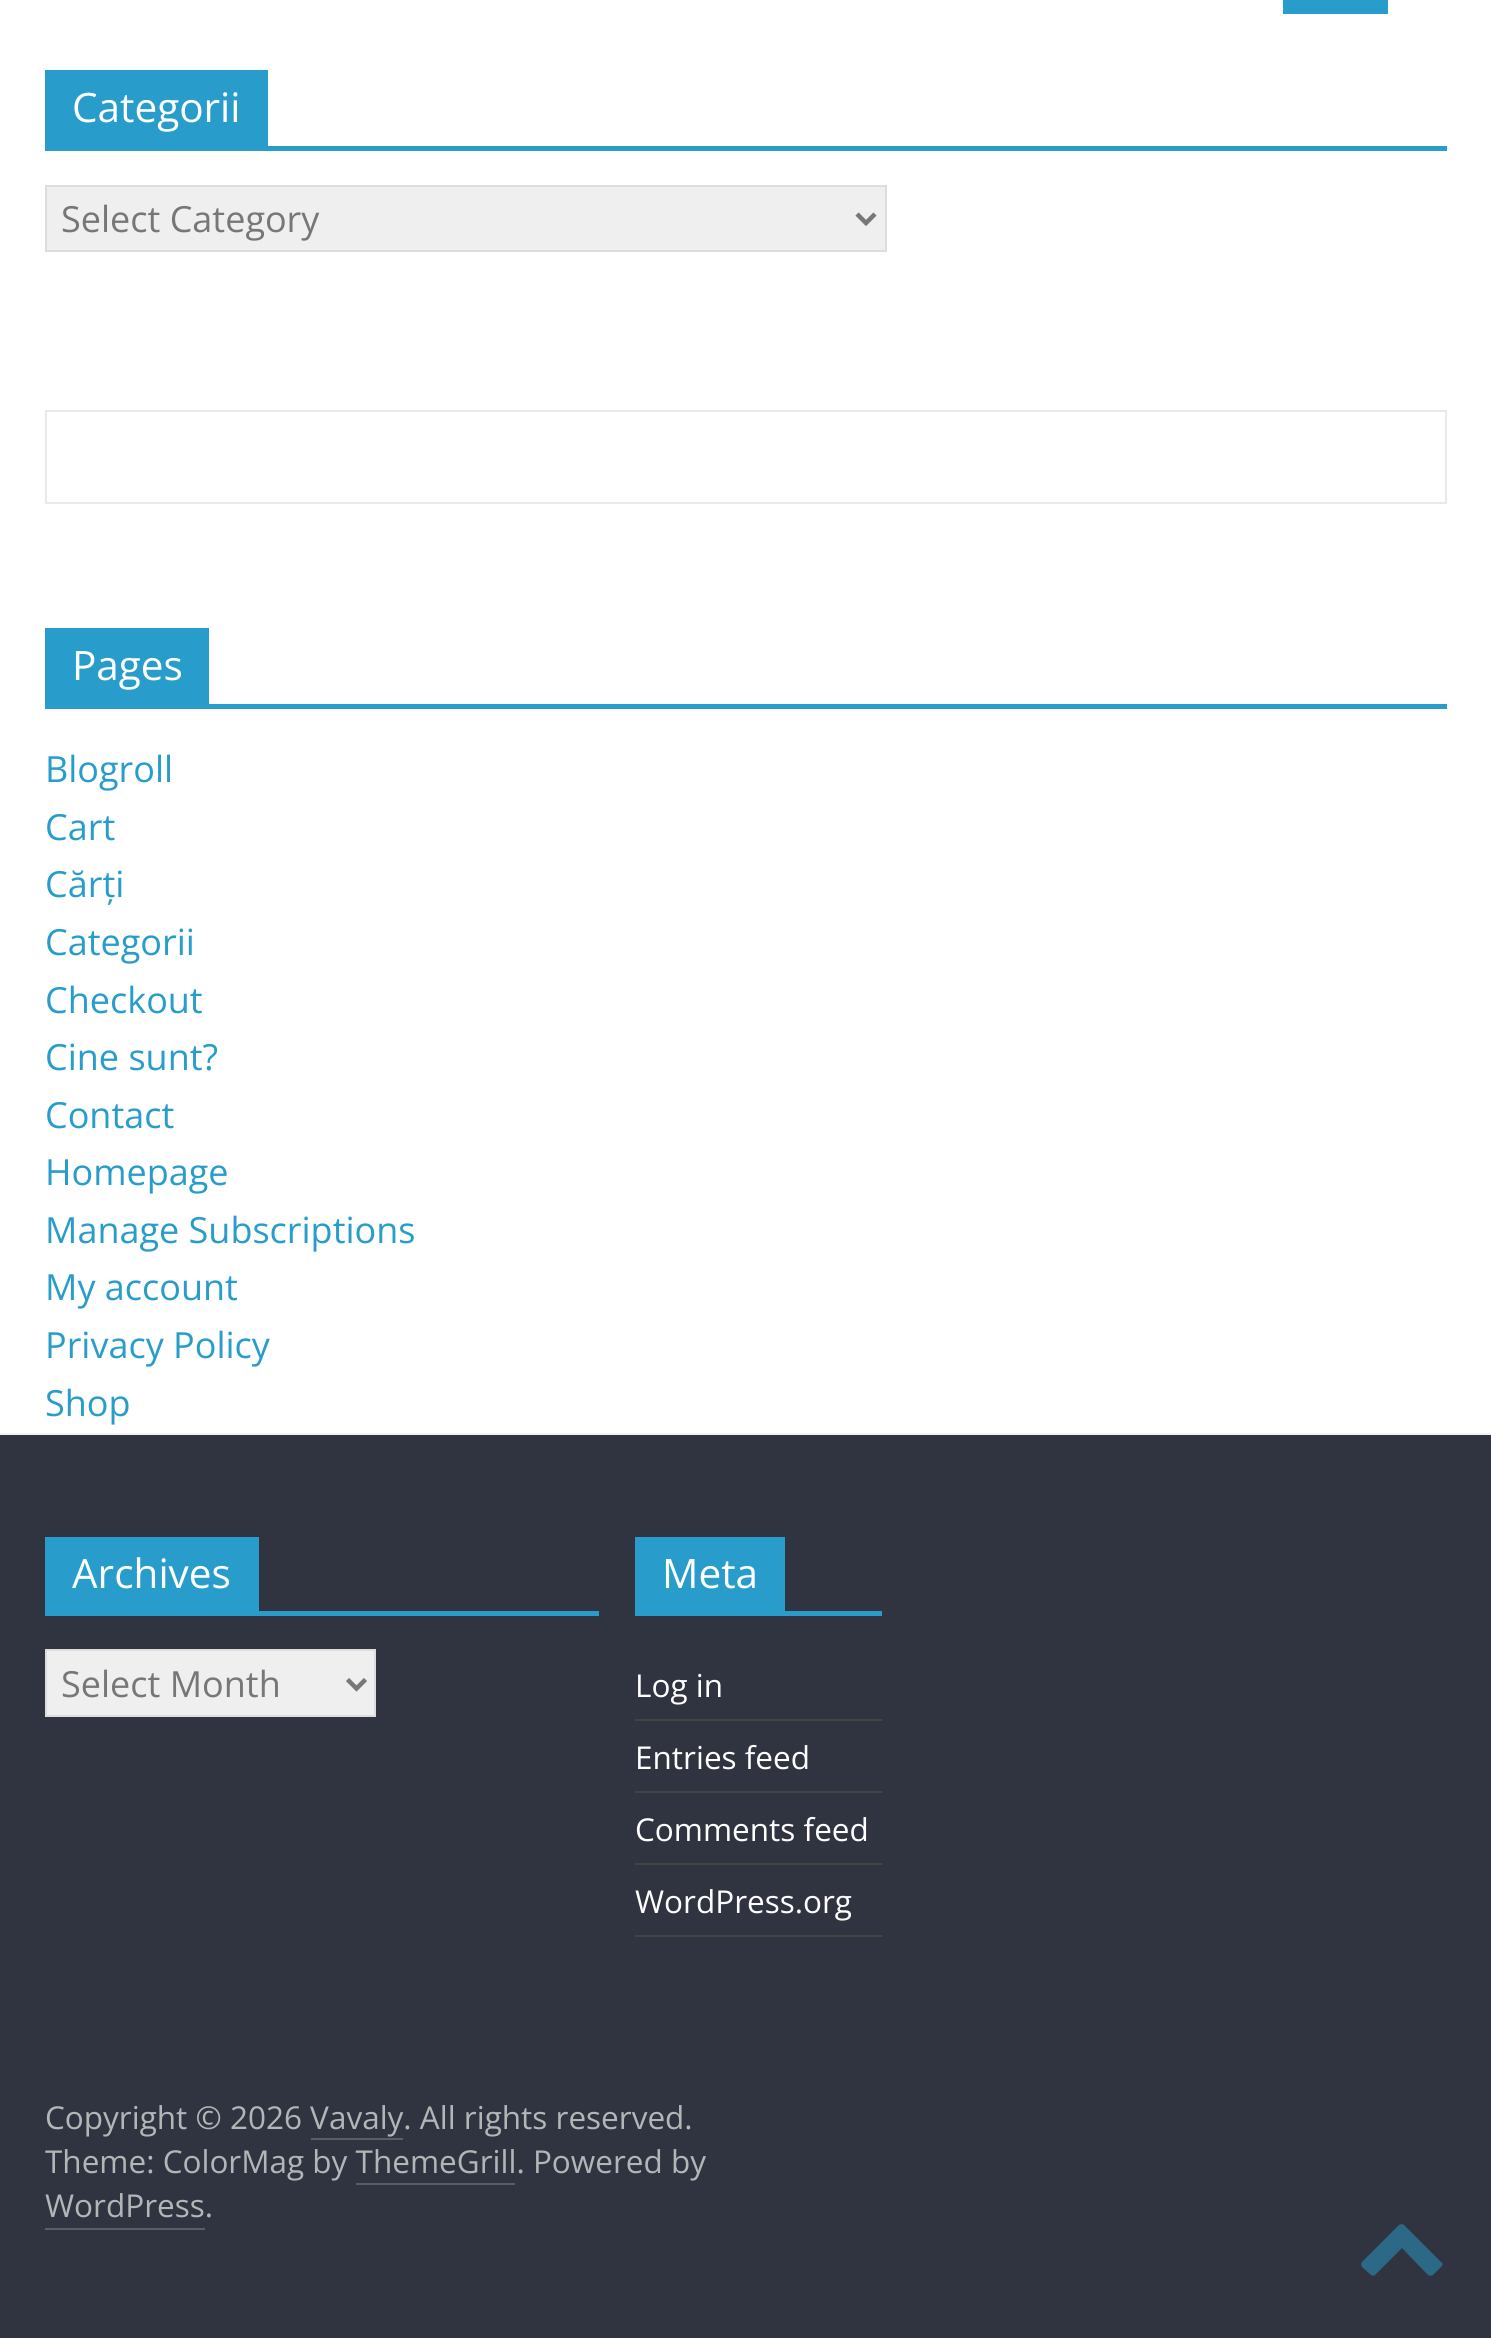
#include <cairo.h>
#include <math.h>
#include <stddef.h>

static cairo_t *c;
static void C(unsigned color){cairo_set_source_rgb(c, (color >> 16) / 255.0, (color >> 8 & 255) / 255.0, (color & 255) / 255.0);}
static void F(const char *family, double size, int italic, int bold){cairo_select_font_face(c, family, italic ? CAIRO_FONT_SLANT_ITALIC : CAIRO_FONT_SLANT_NORMAL,bold ? CAIRO_FONT_WEIGHT_BOLD : CAIRO_FONT_WEIGHT_NORMAL);cairo_set_font_size(c, size);}
static void T(double x, double y, const char *s){cairo_move_to(c, x, y);cairo_show_text(c, s);}
static void R(double x, double y, double w, double h){cairo_rectangle(c, x, y, w, h);cairo_fill(c);}
int main(void) {
cairo_surface_t *surface = cairo_image_surface_create(CAIRO_FORMAT_RGB24, 1491, 2338);
c = cairo_create(surface);
cairo_font_options_t *options = cairo_font_options_create();
cairo_font_options_set_hint_metrics(options, CAIRO_HINT_METRICS_OFF);
cairo_font_options_set_hint_style(options, CAIRO_HINT_STYLE_NONE);
cairo_set_font_options(c, options);
cairo_set_miter_limit(c, 4);
C(0xffffff);
cairo_paint(c);
C(0x289dcc);
R(1283,0,105,14);
R(45,146,1402,5);
R(45,70,223,76);
F("Open Sans",40.5,0,0);
C(0xffffff);
T(72,122,"Categorii");
C(0xefefef);
cairo_rectangle(c,46,186,840,65);
cairo_fill_preserve(c);
C(0xdddddd);
cairo_stroke(c);
cairo_new_path(c);
cairo_move_to(c,857,214);
cairo_line_to(c,866,223);
cairo_line_to(c,875,214);
C(0x777777);
cairo_set_line_width(c,4.5);
cairo_stroke(c);
F("Open Sans",36,0,0);
T(61,232,"Select Category");
cairo_rectangle(c,46,411,1400,92);
C(0xeaeaea);
cairo_set_line_width(c,2);
cairo_stroke(c);
C(0x289dcc);
R(45,704,1402,5);
R(45,628,164,76);
F("Open Sans",40.5,0,0);
C(0xffffff);
T(72,680,"Pages");
F("Open Sans",36,0,0);
C(0x289dcc);
T(45,782,"Blogroll");
T(45,840,"Cart");
T(45,897,"Cărți");
T(45,955,"Categorii");
T(45,1013,"Checkout");
T(45,1070,"Cine sunt?");
T(45,1128,"Contact");
T(45,1185,"Homepage");
T(45,1243,"Manage Subscriptions");
T(45,1300,"My account");
T(45,1358,"Privacy Policy");
T(45,1416,"Shop");
C(0x303440);
R(0,1435,1491,903);
C(0xf2f2f2);
R(0,1433,1491,2);
C(0x289dcc);
R(45,1611,554,5);
R(45,1537,214,74);
F("Open Sans",40.5,0,0);
C(0xffffff);
T(72,1588,"Archives");
C(0xefefef);
cairo_rectangle(c,46,1650,329,66);
cairo_fill_preserve(c);
C(0xdddddd);
cairo_stroke(c);
cairo_new_path(c);
cairo_move_to(c,347.5,1679.5);
cairo_line_to(c,356.5,1688.5);
cairo_line_to(c,365.5,1679.5);
C(0x777777);
cairo_set_line_width(c,4.5);
cairo_stroke(c);
F("Open Sans",36,0,0);
T(61,1697,"Select Month");
C(0x289dcc);
R(635,1611,247,5);
R(635,1537,150,74);
F("Open Sans",40.5,0,0);
C(0xffffff);
T(662,1588,"Meta");
C(0x444444);
R(635,1719,247,2);
F("Open Sans",31.5,0,0);
C(0xffffff);
T(635,1697,"Log in");
C(0x444444);
R(635,1791,247,2);
C(0xffffff);
T(635,1769,"Entries feed");
C(0x444444);
R(635,1863,247,2);
C(0xffffff);
T(635,1841,"Comments feed");
C(0x444444);
R(635,1935,247,2);
C(0xffffff);
T(635,1913,"WordPress.org");
C(0xb1b6b6);
T(45,2129,"Copyright © 2026 Vavaly. All rights reserved.");
C(0x5a5d62);
R(311,2138,92,2);
C(0xb1b6b6);
T(45,2173,"Theme: ColorMag by ThemeGrill. Powered by");
C(0x5a5d62);
R(356,2183,159,2);
C(0xb1b6b6);
T(45,2217,"WordPress.");
C(0x5a5d62);
R(45,2228,160,2);
C(0x2c6986);
cairo_new_path(c);
cairo_move_to(c,1441,2267);
cairo_curve_to(c,1443,2265,1443,2263,1441,2262);
cairo_line_to(c,1404,2225);
cairo_curve_to(c,1403,2224,1401,2224,1399,2225);
cairo_line_to(c,1362,2262);
cairo_curve_to(c,1361,2263,1361,2265,1362,2267);
cairo_line_to(c,1371,2275);
cairo_curve_to(c,1372,2276,1374,2276,1375,2275);
cairo_line_to(c,1402,2248);
cairo_line_to(c,1428,2275);
cairo_curve_to(c,1430,2276,1432,2276,1433,2275);
cairo_close_path(c);
cairo_fill(c);
cairo_surface_write_to_png(surface, "o.png");
cairo_font_options_destroy(options);
cairo_destroy(c);
cairo_surface_destroy(surface);
return 0;
}
